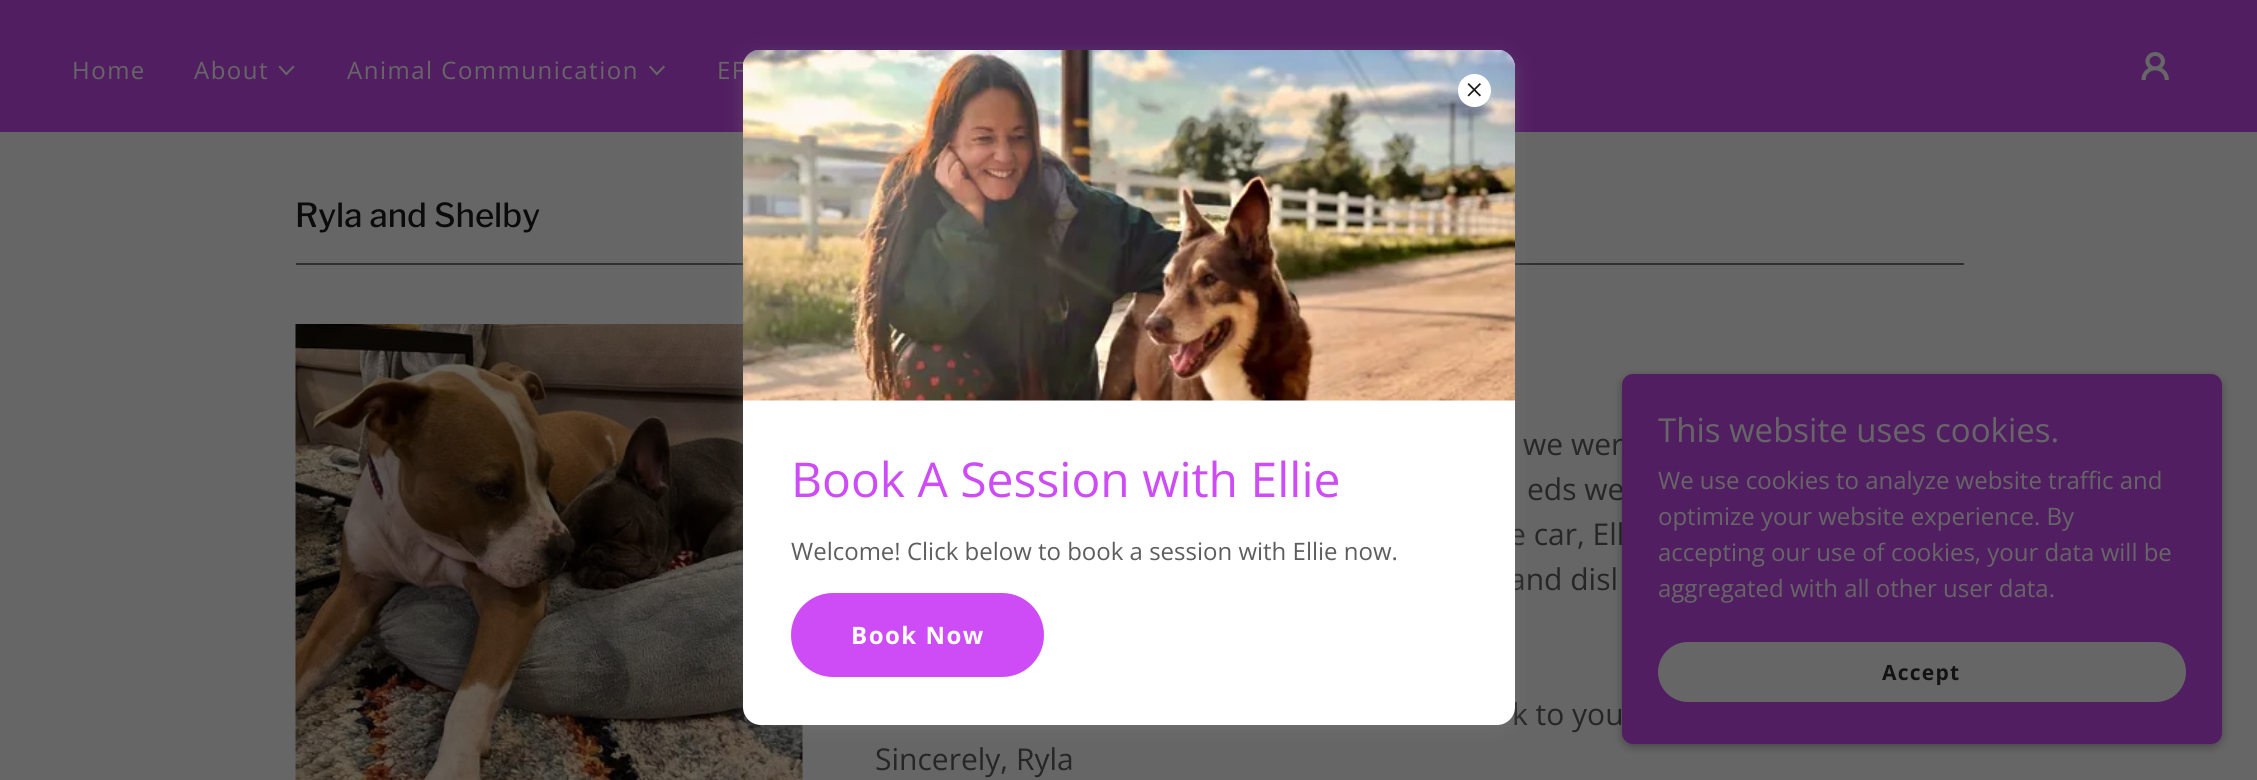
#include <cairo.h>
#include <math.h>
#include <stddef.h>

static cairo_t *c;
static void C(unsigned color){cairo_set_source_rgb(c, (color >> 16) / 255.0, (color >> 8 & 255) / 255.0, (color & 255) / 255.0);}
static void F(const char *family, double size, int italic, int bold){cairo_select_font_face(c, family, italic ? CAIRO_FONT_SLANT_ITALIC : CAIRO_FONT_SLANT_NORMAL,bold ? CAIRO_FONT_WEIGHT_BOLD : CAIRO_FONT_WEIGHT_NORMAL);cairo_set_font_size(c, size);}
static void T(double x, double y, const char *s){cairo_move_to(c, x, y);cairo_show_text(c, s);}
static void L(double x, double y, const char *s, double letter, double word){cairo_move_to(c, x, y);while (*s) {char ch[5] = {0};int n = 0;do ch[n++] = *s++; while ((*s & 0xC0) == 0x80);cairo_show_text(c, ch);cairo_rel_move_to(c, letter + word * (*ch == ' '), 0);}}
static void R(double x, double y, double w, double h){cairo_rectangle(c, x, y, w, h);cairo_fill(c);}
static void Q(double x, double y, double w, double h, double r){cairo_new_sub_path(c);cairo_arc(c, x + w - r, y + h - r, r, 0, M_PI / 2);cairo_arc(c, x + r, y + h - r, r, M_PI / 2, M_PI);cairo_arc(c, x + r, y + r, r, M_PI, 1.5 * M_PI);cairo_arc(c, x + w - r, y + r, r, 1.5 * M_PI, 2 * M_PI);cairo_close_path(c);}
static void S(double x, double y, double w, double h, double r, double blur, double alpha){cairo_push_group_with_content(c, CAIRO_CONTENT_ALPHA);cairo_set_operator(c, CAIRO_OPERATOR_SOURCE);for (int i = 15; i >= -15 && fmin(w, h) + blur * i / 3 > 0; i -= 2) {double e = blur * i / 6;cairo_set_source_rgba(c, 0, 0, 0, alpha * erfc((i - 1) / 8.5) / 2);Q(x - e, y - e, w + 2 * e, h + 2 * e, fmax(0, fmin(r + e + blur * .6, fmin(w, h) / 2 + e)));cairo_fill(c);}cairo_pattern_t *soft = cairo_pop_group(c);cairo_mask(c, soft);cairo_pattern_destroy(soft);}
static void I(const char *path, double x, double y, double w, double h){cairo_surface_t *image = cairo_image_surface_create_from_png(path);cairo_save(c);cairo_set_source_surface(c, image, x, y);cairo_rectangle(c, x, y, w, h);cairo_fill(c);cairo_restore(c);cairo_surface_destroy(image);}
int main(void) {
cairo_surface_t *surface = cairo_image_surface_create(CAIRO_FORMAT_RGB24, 2257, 780);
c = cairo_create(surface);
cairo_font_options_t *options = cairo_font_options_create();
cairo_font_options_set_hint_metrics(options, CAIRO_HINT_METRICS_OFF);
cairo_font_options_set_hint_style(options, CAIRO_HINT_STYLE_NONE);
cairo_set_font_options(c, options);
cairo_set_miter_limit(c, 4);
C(0x666666);
cairo_paint(c);
C(0x521e62);
R(0,0,2257,132);
F("Open Sans",24,0,0);
C(0x666666);
L(72,79,"Home",1.5,0);
L(194,79,"About",1.5,0);
I("1.png",278,65,17,11);
L(347,79,"Animal Communication",1.5,0);
I("2.png",649,65,16,11);
L(717,79,"EF",1.5,0);
I("3.png",2141,52,28,28);
F("Libre Franklin Thin",33,0,0);
C(0x0b0b0b);
T(295,227,"Ryla and Shelby");
C(0x303030);
R(296,263,1668,2);
I("4.png",295,324,508,456);
F("Open Sans",30,0,0);
C(0x262626);
T(1523,455,"we wer");
T(1527,500,"eds we");
T(1509,545,"e car, Ell");
T(1509,590,"and disl");
T(1512,725,"k to you");
T(875,770,"Sincerely, Ryla");
C(0x000000);
S(1622,377,600,370,11,4.5,.3);
C(0x521e62);
Q(1622,374,600,370,11);
cairo_fill(c);
F("Open Sans",33,0,0);
C(0x666666);
T(1658,442,"This website uses cookies.");
F("Open Sans",24,0,0);
T(1658,489,"We use cookies to analyze website traffic and");
T(1658,525,"optimize your website experience. By");
T(1658,561,"accepting our use of cookies, your data will be");
T(1658,597,"aggregated with all other user data.");
Q(1658,642,528,60,30);
cairo_fill(c);
F("Open Sans",21,0,1);
C(0x131313);
L(1882,680,"Accept",1.25,0);
C(0x757575);
S(743,56,772,675,18,9,.4);
C(0xffffff);
Q(743,50,772,675,18);
cairo_fill(c);
I("6.png",743,50,772,351);
cairo_arc(c,1474.5,90.5,16.5,0,2 * M_PI);
cairo_fill(c);
I("5.png",1467,83,14,14);
F("Open Sans",48,0,0);
C(0xce4cf5);
T(791,497,"Book A Session with Ellie");
F("Open Sans",24,0,0);
C(0x5e5e5e);
T(791,560,"Welcome! Click below to book a session with Ellie now.");
C(0xce4cf5);
Q(791,593,253,84,42);
cairo_fill(c);
F("Open Sans",24,0,1);
C(0xffffff);
L(851,644,"Book Now",1.5,0);
cairo_surface_write_to_png(surface, "o.png");
cairo_font_options_destroy(options);
cairo_destroy(c);
cairo_surface_destroy(surface);
return 0;
}
